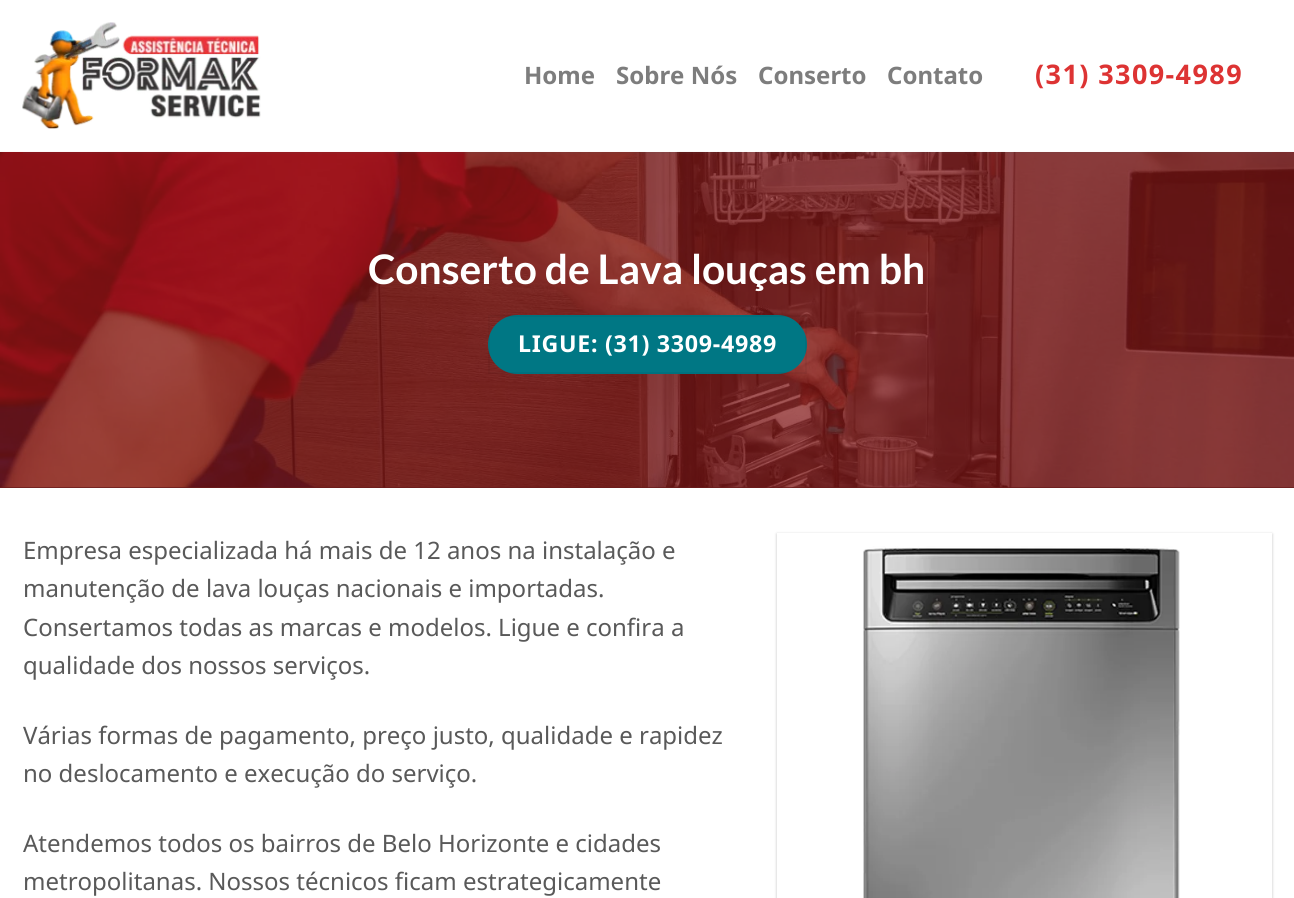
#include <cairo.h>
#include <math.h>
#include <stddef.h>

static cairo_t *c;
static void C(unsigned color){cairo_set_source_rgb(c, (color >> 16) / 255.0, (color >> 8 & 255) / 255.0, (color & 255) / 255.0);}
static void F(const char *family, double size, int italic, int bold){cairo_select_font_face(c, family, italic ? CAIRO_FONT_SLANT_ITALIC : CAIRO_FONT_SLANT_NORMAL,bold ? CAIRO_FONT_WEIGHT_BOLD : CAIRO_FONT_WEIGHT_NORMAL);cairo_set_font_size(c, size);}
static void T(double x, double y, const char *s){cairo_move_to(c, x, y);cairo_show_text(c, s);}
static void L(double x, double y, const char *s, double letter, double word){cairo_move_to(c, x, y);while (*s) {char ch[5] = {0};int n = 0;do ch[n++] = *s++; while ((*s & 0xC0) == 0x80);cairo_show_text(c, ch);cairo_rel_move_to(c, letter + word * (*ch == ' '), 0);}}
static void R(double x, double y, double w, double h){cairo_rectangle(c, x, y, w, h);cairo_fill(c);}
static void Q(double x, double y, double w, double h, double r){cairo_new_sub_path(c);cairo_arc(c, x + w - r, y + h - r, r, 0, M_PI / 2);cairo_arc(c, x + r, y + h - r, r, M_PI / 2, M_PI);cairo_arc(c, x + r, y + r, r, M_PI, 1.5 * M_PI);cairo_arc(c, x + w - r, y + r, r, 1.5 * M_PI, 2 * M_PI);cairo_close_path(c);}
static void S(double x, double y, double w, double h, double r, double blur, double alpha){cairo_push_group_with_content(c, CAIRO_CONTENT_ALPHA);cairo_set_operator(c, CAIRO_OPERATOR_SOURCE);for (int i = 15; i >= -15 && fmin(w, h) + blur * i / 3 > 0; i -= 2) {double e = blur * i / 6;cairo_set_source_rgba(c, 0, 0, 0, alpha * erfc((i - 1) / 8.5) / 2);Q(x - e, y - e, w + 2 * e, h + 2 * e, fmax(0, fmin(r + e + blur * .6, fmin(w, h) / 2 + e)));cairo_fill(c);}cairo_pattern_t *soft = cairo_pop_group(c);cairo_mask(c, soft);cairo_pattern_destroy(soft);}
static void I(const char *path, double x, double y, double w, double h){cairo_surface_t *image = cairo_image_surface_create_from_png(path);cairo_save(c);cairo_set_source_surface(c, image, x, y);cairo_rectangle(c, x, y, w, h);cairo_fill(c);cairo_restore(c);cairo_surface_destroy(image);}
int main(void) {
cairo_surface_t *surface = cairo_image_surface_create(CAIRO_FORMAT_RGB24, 1294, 898);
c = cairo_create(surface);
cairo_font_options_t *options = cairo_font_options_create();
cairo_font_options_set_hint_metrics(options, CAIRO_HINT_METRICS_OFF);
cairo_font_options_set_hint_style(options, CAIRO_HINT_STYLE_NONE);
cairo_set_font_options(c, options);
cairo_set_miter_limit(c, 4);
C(0xffffff);
cairo_paint(c);
I("1.png",22,22,239,107);
F("Noto Sans",24,0,1);
C(0x7d7d7d);
T(524,84,"Home");
T(616,84,"Sobre Nós");
T(758,84,"Conserto");
T(887,84,"Contato");
F("Noto Sans",27,0,1);
C(0xdd3333);
L(1035,84,"(31) 3309-4989",1.4,0);
C(0x6a1b1b);
R(0,487,1294,1);
I("2.png",0,151,1294,337);
cairo_set_source_rgba(c,0.349,0.349,0.349,0.1);
R(23,152,1249,2);
cairo_set_source_rgba(c,1,1,1,0.9);
R(0,151,1294,1);
F("Lato",40.75,0,1);
C(0xffffff);
T(368,284,"Conserto de Lava louças em bh");
C(0x007784);
Q(488,315,319,59,29.5);
cairo_fill(c);
cairo_rectangle(c,489,316,317,57);
cairo_set_source_rgba(c,0,0,0,0.05);
cairo_stroke(c);
F("Noto Sans",23.25,0,1);
C(0xffffff);
L(518,352,"LIGUE: (31) 3309-4989",.7,0);
F("Noto Sans",24,0,0);
C(0x595959);
T(23,559,"Empresa especializada há mais de 12 anos na instalação e");
T(23,597,"manutenção de lava louças nacionais e importadas.");
T(23,636,"Consertamos todas as marcas e modelos. Ligue e confira a");
T(23,674,"qualidade dos nossos serviços.");
T(23,744,"Várias formas de pagamento, preço justo, qualidade e rapidez");
T(23,782,"no deslocamento e execução do serviço.");
T(23,852,"Atendemos todos os bairros de Belo Horizonte e cidades");
T(23,890,"metropolitanas. Nossos técnicos ficam estrategicamente");
cairo_save(c);
cairo_set_fill_rule(c,CAIRO_FILL_RULE_EVEN_ODD);
cairo_new_path(c);
cairo_move_to(c,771,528);
cairo_line_to(c,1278,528);
cairo_line_to(c,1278,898);
cairo_line_to(c,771,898);
cairo_close_path(c);
cairo_move_to(c,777,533);
cairo_line_to(c,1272,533);
cairo_line_to(c,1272,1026);
cairo_line_to(c,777,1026);
cairo_close_path(c);
cairo_clip(c);
C(0x000000);
S(777,534,495,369,0,1.5,.24);
cairo_restore(c);
I("3.png",863,546,317,352);
cairo_surface_write_to_png(surface, "o.png");
cairo_font_options_destroy(options);
cairo_destroy(c);
cairo_surface_destroy(surface);
return 0;
}
